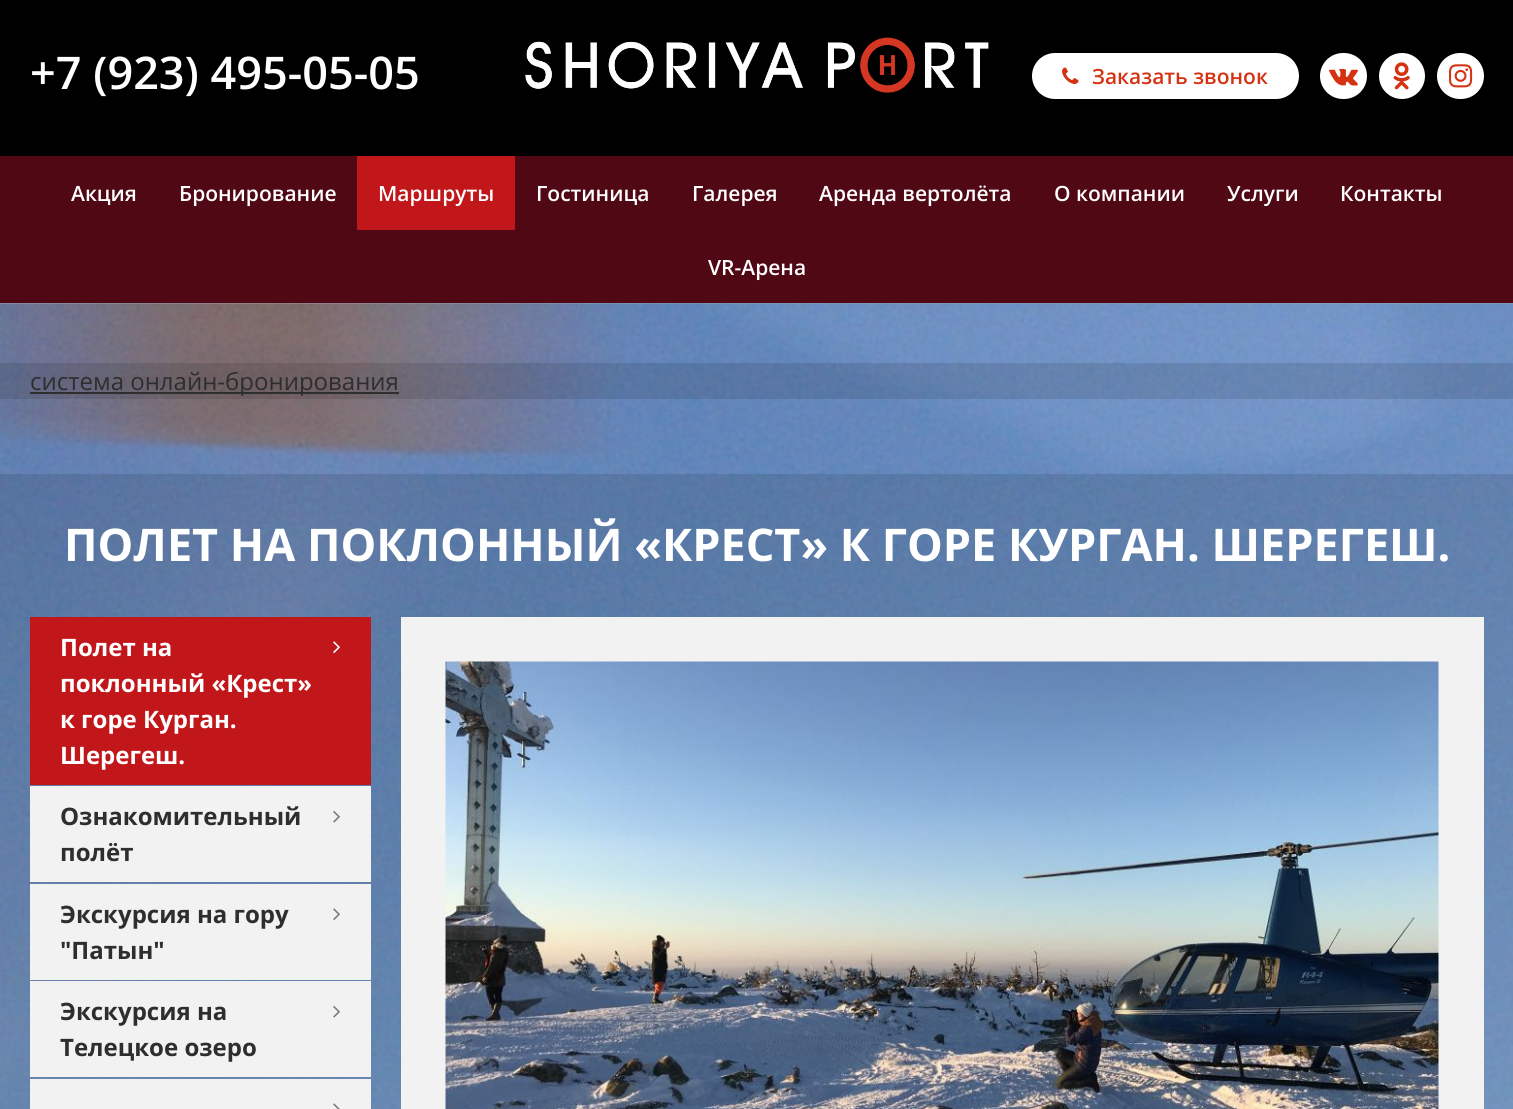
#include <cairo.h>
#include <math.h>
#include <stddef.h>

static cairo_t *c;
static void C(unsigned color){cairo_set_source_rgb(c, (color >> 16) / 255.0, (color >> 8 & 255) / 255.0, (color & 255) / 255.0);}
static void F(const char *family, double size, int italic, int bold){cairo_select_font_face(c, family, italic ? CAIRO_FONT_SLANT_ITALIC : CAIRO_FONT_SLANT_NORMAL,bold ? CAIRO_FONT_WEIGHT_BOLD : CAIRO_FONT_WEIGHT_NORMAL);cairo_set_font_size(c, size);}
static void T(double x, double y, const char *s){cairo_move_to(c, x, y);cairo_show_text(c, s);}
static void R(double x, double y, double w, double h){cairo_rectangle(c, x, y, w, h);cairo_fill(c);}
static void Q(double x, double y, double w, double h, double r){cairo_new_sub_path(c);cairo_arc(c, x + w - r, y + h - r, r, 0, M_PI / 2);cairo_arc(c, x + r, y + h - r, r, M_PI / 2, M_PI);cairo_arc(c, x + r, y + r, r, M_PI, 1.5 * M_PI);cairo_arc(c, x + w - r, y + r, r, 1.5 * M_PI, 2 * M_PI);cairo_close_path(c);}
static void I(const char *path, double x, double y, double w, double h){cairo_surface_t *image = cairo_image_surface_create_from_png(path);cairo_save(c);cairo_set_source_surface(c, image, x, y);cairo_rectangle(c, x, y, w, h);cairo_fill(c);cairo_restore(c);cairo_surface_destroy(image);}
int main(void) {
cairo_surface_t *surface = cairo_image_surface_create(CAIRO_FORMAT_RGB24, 1513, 1109);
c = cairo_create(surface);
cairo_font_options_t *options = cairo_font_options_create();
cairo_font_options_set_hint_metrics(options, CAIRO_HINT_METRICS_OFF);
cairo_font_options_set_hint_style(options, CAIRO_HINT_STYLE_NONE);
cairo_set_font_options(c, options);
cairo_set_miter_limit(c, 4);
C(0x000000);
cairo_paint(c);
F("Open Sans SemiBold",45,0,0);
C(0xffffff);
T(30,89,"+7 (923) 495-05-05");
I("1.png",525,37,464,56);
Q(1032,53,267,46,23);
cairo_fill(c);
I("2.png",1062,67,17,17);
F("Open Sans SemiBold",21,0,0);
C(0xd53211);
T(1092,84,"Заказать звонок");
C(0xffffff);
Q(1320,53,47,46,23);
cairo_fill(c);
I("3.png",1329,69,29,17);
cairo_arc(c,1402,76,23,0,2 * M_PI);
cairo_fill(c);
I("4.png",1393,62,17,28);
Q(1437,53,47,46,23);
cairo_fill(c);
I("5.png",1449,64,24,24);
C(0x500814);
R(0,156,1513,147);
C(0xffffff);
T(71,201,"Акция");
T(179,201,"Бронирование");
C(0xc2171a);
R(357,156,158,74);
C(0xffffff);
T(378,201,"Маршруты");
T(536,201,"Гостиница");
T(692,201,"Галерея");
T(819,201,"Аренда вертолёта");
T(1054,201,"О компании");
T(1227,201,"Услуги");
T(1340,201,"Контакты");
T(708,275,"VR-Арена");
I("6.png",0,303,1513,806);
cairo_set_source_rgba(c,0,0,0,0.11);
R(0,363,1513,36);
C(0x2e2e2e);
R(30,392,369,2);
F("Open Sans",24,0,0);
T(30,390,"система онлайн-бронирования");
cairo_set_source_rgba(c,0,0,0,0.11);
R(0,474,1513,635);
F("Open Sans",45,0,1);
C(0xffffff);
T(64,561,"ПОЛЕТ НА ПОКЛОННЫЙ «КРЕСТ» К ГОРЕ КУРГАН. ШЕРЕГЕШ.");
C(0xc2171a);
R(30,617,341,168);
F("Open Sans",24,0,1);
C(0xffffff);
T(60,656,"Полет на");
I("7.png",333,641,7,12);
T(60,692,"поклонный «Крест»");
T(60,728,"к горе Курган.");
T(60,764,"Шерегеш.");
C(0xf2f2f2);
R(30,786,341,96);
C(0x2e2e2e);
T(60,825,"Ознакомительный");
I("8.png",333,811,7,12);
T(60,861,"полёт");
C(0xf2f2f2);
R(30,884,341,96);
C(0x2e2e2e);
T(60,923,"Экскурсия на гору");
I("9.png",333,908,7,12);
T(60,959,"\"Патын\"");
C(0xf2f2f2);
R(30,981,341,96);
C(0x2e2e2e);
T(60,1020,"Экскурсия на");
I("8.png",333,1006,7,12);
T(60,1056,"Телецкое озеро");
C(0xf2f2f2);
R(30,1079,341,30);
I("10.png",333,1103,7,6);
R(401,617,1083,492);
I("11.png",445,661,994,448);
cairo_surface_write_to_png(surface, "o.png");
cairo_font_options_destroy(options);
cairo_destroy(c);
cairo_surface_destroy(surface);
return 0;
}
